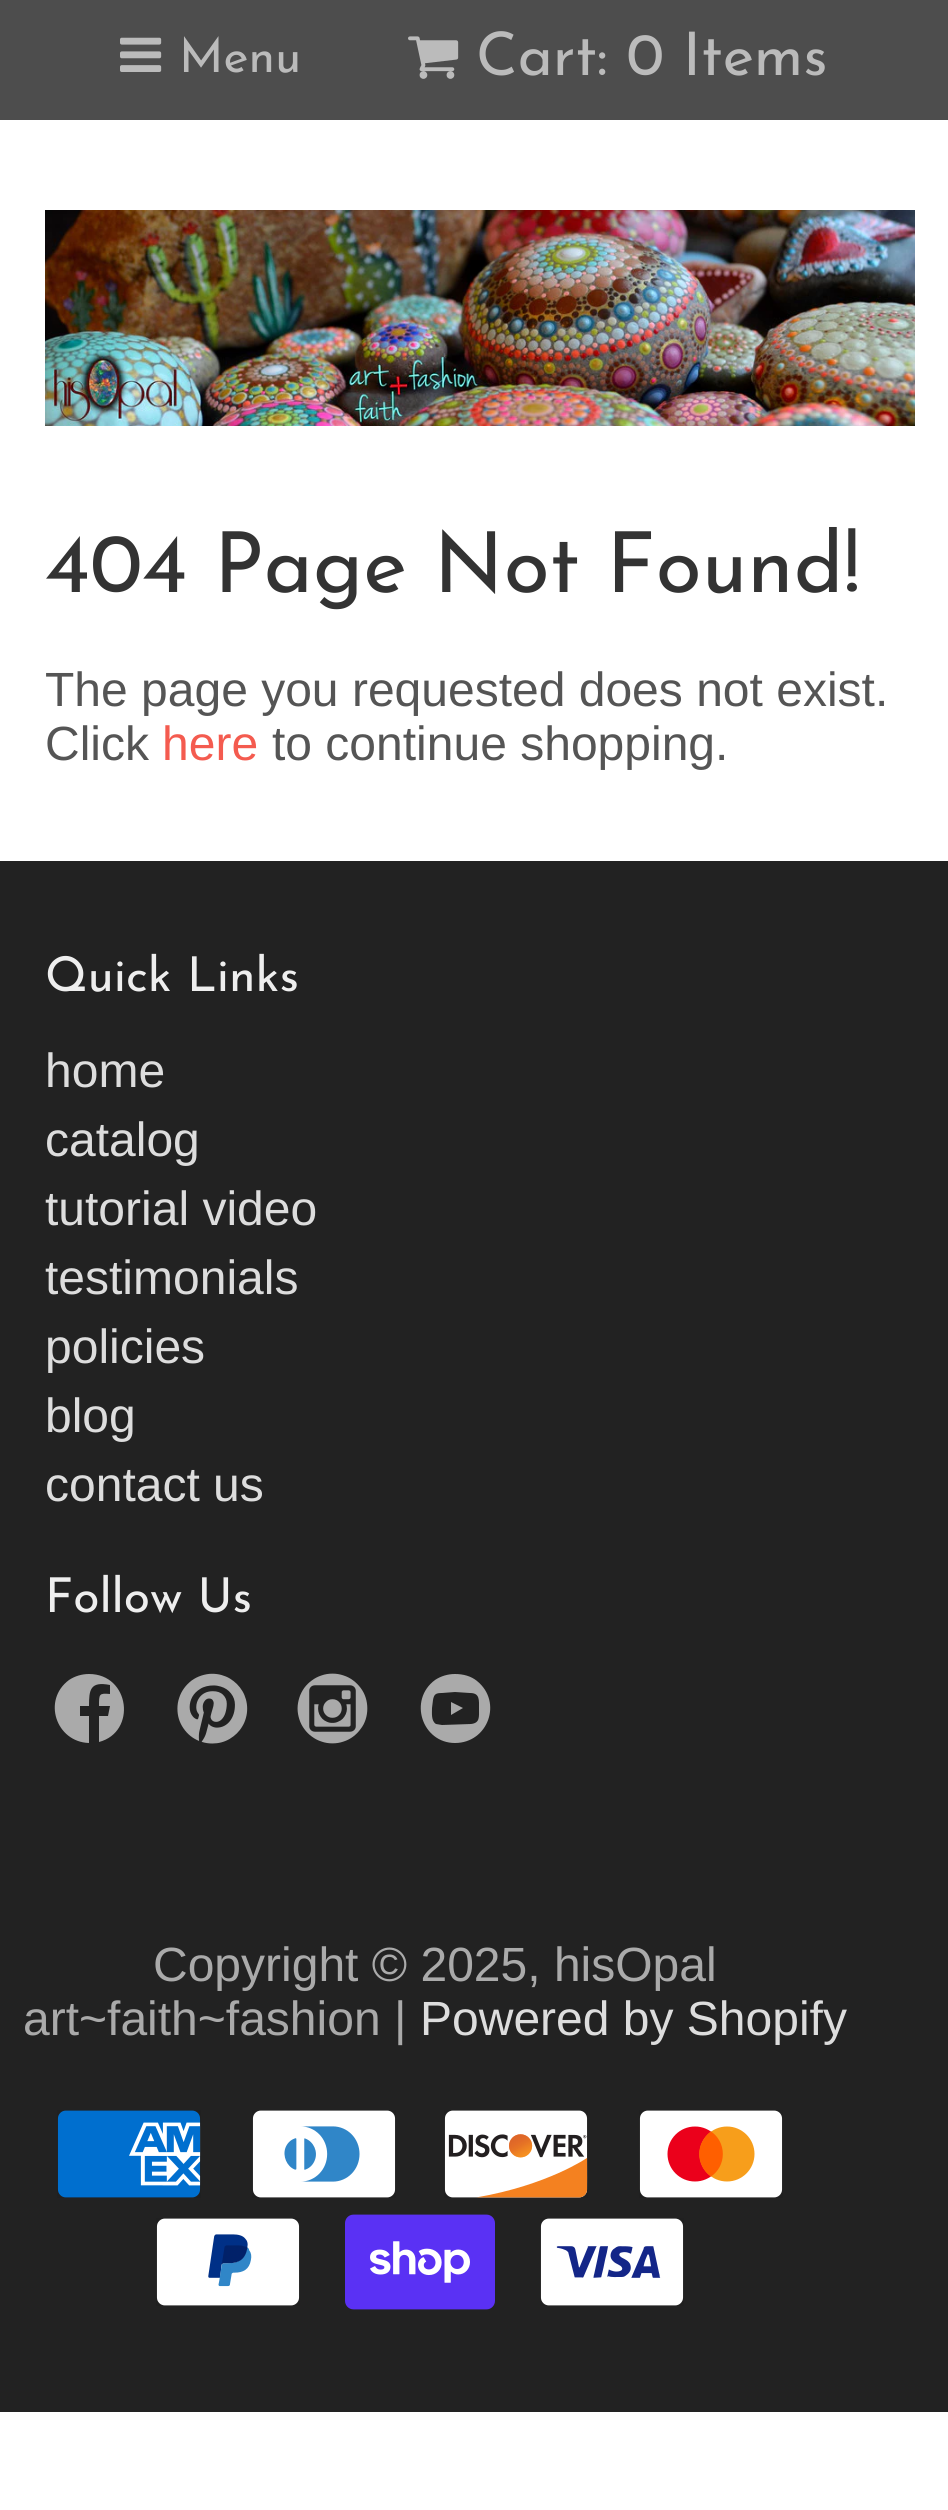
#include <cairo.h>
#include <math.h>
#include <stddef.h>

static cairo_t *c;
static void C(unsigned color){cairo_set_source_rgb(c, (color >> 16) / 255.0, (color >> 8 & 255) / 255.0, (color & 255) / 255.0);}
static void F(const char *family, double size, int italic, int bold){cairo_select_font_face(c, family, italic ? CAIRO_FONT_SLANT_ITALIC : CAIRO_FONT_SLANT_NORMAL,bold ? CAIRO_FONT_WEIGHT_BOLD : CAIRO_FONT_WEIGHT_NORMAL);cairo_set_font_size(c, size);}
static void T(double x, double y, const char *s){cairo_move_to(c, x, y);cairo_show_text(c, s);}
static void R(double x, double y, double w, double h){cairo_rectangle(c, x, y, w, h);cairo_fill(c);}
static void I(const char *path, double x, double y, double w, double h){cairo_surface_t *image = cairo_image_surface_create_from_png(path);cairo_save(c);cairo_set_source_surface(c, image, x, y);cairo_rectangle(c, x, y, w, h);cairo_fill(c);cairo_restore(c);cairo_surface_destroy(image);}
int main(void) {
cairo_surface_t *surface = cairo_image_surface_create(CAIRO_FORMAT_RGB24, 948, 2510);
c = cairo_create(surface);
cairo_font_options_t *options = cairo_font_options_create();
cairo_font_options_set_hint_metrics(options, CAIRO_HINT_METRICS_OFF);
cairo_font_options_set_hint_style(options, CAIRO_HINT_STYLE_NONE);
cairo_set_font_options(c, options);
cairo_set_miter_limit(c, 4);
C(0xffffff);
cairo_paint(c);
C(0x4d4d4d);
R(0,0,948,120);
I("1.png",120,37,42,35);
F("Josefin Sans",48,0,0);
C(0xbbbbbb);
T(179,72,"Menu");
I("2.png",408,36,51,43);
F("Josefin Sans",60,0,0);
T(476,75,"Cart: 0 Items");
I("3.png",45,210,870,216);
F("Josefin Sans",84,0,0);
C(0x333333);
T(45,592,"404 Page Not Found!");
F("Liberation Sans",48,0,0);
C(0x555555);
T(45,706,"The page you requested does not exist.");
T(45,760,"Click");
C(0xf45b4f);
T(162,760,"here");
C(0x555555);
T(272,760,"to continue shopping.");
C(0x222222);
R(0,861,948,1551);
F("Josefin Sans",48,0,0);
C(0xeeeeee);
T(45,991,"Quick Links");
F("Liberation Sans",48,0,0);
C(0xdddddd);
T(45,1087,"home");
T(45,1156,"catalog");
T(45,1225,"tutorial video");
T(45,1294,"testimonials");
T(45,1363,"policies");
T(45,1432,"blog");
T(45,1501,"contact us");
F("Josefin Sans",48,0,0);
C(0xeeeeee);
T(45,1612,"Follow Us");
C(0xaaaaaa);
cairo_new_path(c);
cairo_move_to(c,89,1674);
cairo_curve_to(c,130,1674,137,1732,99,1742);
cairo_line_to(c,99,1716);
cairo_line_to(c,108,1716);
cairo_line_to(c,110,1706);
cairo_line_to(c,99,1706);
cairo_curve_to(c,99,1694,99,1693,110,1694);
cairo_line_to(c,110,1685);
cairo_curve_to(c,90,1681,89,1690,89,1706);
cairo_line_to(c,80,1706);
cairo_line_to(c,80,1716);
cairo_line_to(c,89,1716);
cairo_line_to(c,89,1743);
cairo_curve_to(c,56,1742,42,1700,69,1680);
cairo_curve_to(c,75,1676,82,1674,89,1674);
cairo_close_path(c);
cairo_fill(c);
I("4.png",177,1673,71,71);
I("5.png",297,1673,71,71);
cairo_new_path(c);
cairo_move_to(c,463,1708);
cairo_line_to(c,451,1715);
cairo_line_to(c,451,1702);
cairo_close_path(c);
cairo_move_to(c,432,1708);
cairo_curve_to(c,432,1713,431,1721,436,1724);
cairo_line_to(c,442,1725);
cairo_line_to(c,471,1724);
cairo_curve_to(c,480,1723,479,1717,479,1709);
cairo_curve_to(c,479,1700,480,1693,470,1693);
cairo_line_to(c,455,1692);
cairo_line_to(c,442,1693);
cairo_curve_to(c,436,1693,434,1694,433,1700);
cairo_close_path(c);
cairo_move_to(c,455,1674);
cairo_curve_to(c,463,1674,471,1676,477,1681);
cairo_curve_to(c,503,1702,488,1743,455,1743);
cairo_curve_to(c,422,1743,408,1700,435,1680);
cairo_curve_to(c,441,1676,448,1674,455,1674);
cairo_close_path(c);
cairo_fill(c);
F("Liberation Sans",48,0,0);
T(153,1981,"Copyright © 2025, hisOpal");
T(23,2035,"art~faith~fashion |");
C(0xdddddd);
T(420,2035,"Powered by Shopify");
I("6.png",57,2110,144,88);
I("7.png",252,2110,144,88);
I("8.png",444,2110,144,88);
I("9.png",639,2110,144,88);
I("10.png",156,2218,144,88);
I("11.png",345,2214,150,96);
I("12.png",540,2218,144,88);
cairo_surface_write_to_png(surface, "o.png");
cairo_font_options_destroy(options);
cairo_destroy(c);
cairo_surface_destroy(surface);
return 0;
}
